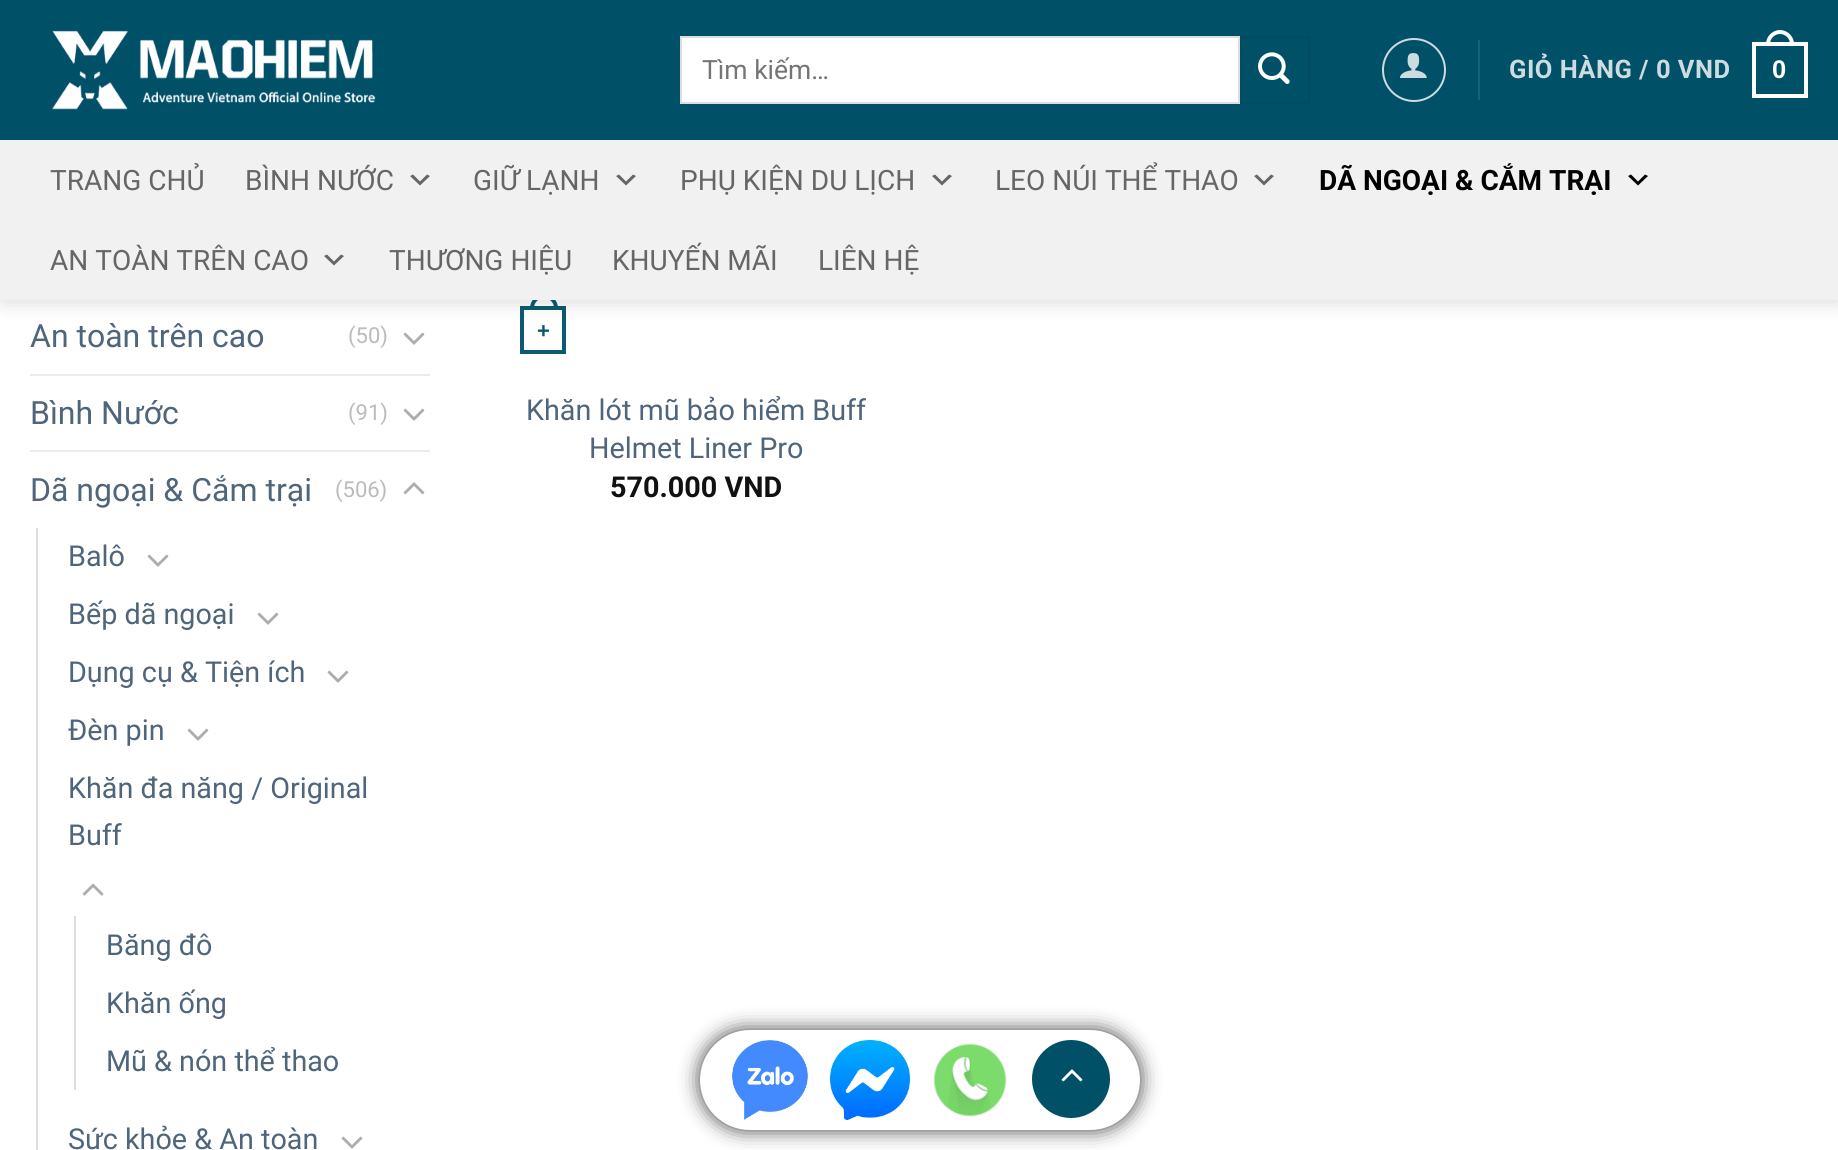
#include <cairo.h>
#include <math.h>
#include <stddef.h>

static cairo_t *c;
static void C(unsigned color){cairo_set_source_rgb(c, (color >> 16) / 255.0, (color >> 8 & 255) / 255.0, (color & 255) / 255.0);}
static void F(const char *family, double size, int italic, int bold){cairo_select_font_face(c, family, italic ? CAIRO_FONT_SLANT_ITALIC : CAIRO_FONT_SLANT_NORMAL,bold ? CAIRO_FONT_WEIGHT_BOLD : CAIRO_FONT_WEIGHT_NORMAL);cairo_set_font_size(c, size);}
static void T(double x, double y, const char *s){cairo_move_to(c, x, y);cairo_show_text(c, s);}
static void L(double x, double y, const char *s, double letter, double word){cairo_move_to(c, x, y);while (*s) {char ch[5] = {0};int n = 0;do ch[n++] = *s++; while ((*s & 0xC0) == 0x80);cairo_show_text(c, ch);cairo_rel_move_to(c, letter + word * (*ch == ' '), 0);}}
static void R(double x, double y, double w, double h){cairo_rectangle(c, x, y, w, h);cairo_fill(c);}
static void Q(double x, double y, double w, double h, double r){cairo_new_sub_path(c);cairo_arc(c, x + w - r, y + h - r, r, 0, M_PI / 2);cairo_arc(c, x + r, y + h - r, r, M_PI / 2, M_PI);cairo_arc(c, x + r, y + r, r, M_PI, 1.5 * M_PI);cairo_arc(c, x + w - r, y + r, r, 1.5 * M_PI, 2 * M_PI);cairo_close_path(c);}
static void S(double x, double y, double w, double h, double r, double blur, double alpha){cairo_push_group_with_content(c, CAIRO_CONTENT_ALPHA);cairo_set_operator(c, CAIRO_OPERATOR_SOURCE);for (int i = 15; i >= -15 && fmin(w, h) + blur * i / 3 > 0; i -= 2) {double e = blur * i / 6;cairo_set_source_rgba(c, 0, 0, 0, alpha * erfc((i - 1) / 8.5) / 2);Q(x - e, y - e, w + 2 * e, h + 2 * e, fmax(0, fmin(r + e + blur * .6, fmin(w, h) / 2 + e)));cairo_fill(c);}cairo_pattern_t *soft = cairo_pop_group(c);cairo_mask(c, soft);cairo_pattern_destroy(soft);}
static void I(const char *path, double x, double y, double w, double h){cairo_surface_t *image = cairo_image_surface_create_from_png(path);cairo_save(c);cairo_set_source_surface(c, image, x, y);cairo_rectangle(c, x, y, w, h);cairo_fill(c);cairo_restore(c);cairo_surface_destroy(image);}
int main(void) {
cairo_surface_t *surface = cairo_image_surface_create(CAIRO_FORMAT_RGB24, 1838, 1150);
c = cairo_create(surface);
cairo_font_options_t *options = cairo_font_options_create();
cairo_font_options_set_hint_metrics(options, CAIRO_HINT_METRICS_OFF);
cairo_font_options_set_hint_style(options, CAIRO_HINT_STYLE_NONE);
cairo_set_font_options(c, options);
cairo_set_miter_limit(c, 4);
C(0xffffff);
cairo_paint(c);
I("4.png",403,332,22,13);
cairo_rectangle(c,522,308,42,44);
C(0x0d596f);
cairo_set_line_width(c,4);
cairo_stroke(c);
cairo_set_fill_rule(c,CAIRO_FILL_RULE_EVEN_ODD);
cairo_new_path(c);
cairo_move_to(c,544,294);
cairo_curve_to(c,551.5,294,558,300.5,558,308);
cairo_line_to(c,558,310);
cairo_line_to(c,530,310);
cairo_line_to(c,530,308);
cairo_curve_to(c,530,300.5,536.5,294,544,294);
cairo_close_path(c);
cairo_move_to(c,544,298);
cairo_curve_to(c,549.5,298,554,302.5,554,308);
cairo_line_to(c,554,310);
cairo_line_to(c,534,310);
cairo_line_to(c,534,308);
cairo_curve_to(c,534,302.5,538.5,298,544,298);
cairo_close_path(c);
cairo_fill(c);
C(0x000000);
S(2,2,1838,300,0,10,.15);
C(0x005067);
R(0,0,1838,140);
I("1.png",52,30,324,80);
C(0xffffff);
cairo_rectangle(c,681,37,558,66);
cairo_fill_preserve(c);
C(0xdddddd);
cairo_set_line_width(c,2);
cairo_stroke(c);
F("Roboto",26.5,0,0);
C(0x757575);
T(702,79,"Tìm kiếm…");
cairo_rectangle(c,1241,37,68,66);
C(0x004c62);
cairo_stroke(c);
I("2.png",1258,52,32,32);
cairo_arc(c,1414,70,31,0,2 * M_PI);
C(0xccdce1);
cairo_stroke(c);
I("3.png",1400,53,27,25);
C(0x1a6276);
R(1478,40,2,60);
F("Roboto",25.5,0,1);
C(0xccdce1);
L(1509,78,"GIỎ HÀNG / 0 VND",.5,0);
cairo_rectangle(c,1754,44,52,52);
C(0xffffff);
cairo_set_line_width(c,4);
cairo_stroke(c);
cairo_new_path(c);
cairo_move_to(c,1780,30);
cairo_curve_to(c,1787.5,30,1794,36.5,1794,44);
cairo_line_to(c,1794,46);
cairo_line_to(c,1766,46);
cairo_line_to(c,1766,44);
cairo_curve_to(c,1766,36.5,1772.5,30,1780,30);
cairo_close_path(c);
cairo_move_to(c,1780,34);
cairo_curve_to(c,1785.5,34,1790,38.5,1790,44);
cairo_line_to(c,1790,46);
cairo_line_to(c,1770,46);
cairo_line_to(c,1770,44);
cairo_curve_to(c,1770,38.5,1774.5,34,1780,34);
cairo_close_path(c);
cairo_fill(c);
F("Liberation Sans",25.5,0,1);
L(1772,78,"0",.5,0);
C(0xf1f1f1);
R(0,140,1838,160);
F("Roboto",28,0,0);
C(0x666666);
T(50,190,"TRANG CHỦ");
T(245,190,"BÌNH NƯỚC");
cairo_set_fill_rule(c,CAIRO_FILL_RULE_WINDING);
cairo_new_path(c);
cairo_move_to(c,413,174.5);
cairo_line_to(c,420,181.5);
cairo_line_to(c,427,174.5);
cairo_line_to(c,430,176);
cairo_line_to(c,420,185.5);
cairo_line_to(c,410,176);
cairo_close_path(c);
cairo_fill(c);
T(473,190,"GIỮ LẠNH");
cairo_new_path(c);
cairo_move_to(c,619,174.5);
cairo_line_to(c,626,181.5);
cairo_line_to(c,633,174.5);
cairo_line_to(c,636,176);
cairo_line_to(c,626,185.5);
cairo_line_to(c,616,176);
cairo_close_path(c);
cairo_fill(c);
T(680,190,"PHỤ KIỆN DU LỊCH");
cairo_new_path(c);
cairo_move_to(c,935,174.5);
cairo_line_to(c,942,181.5);
cairo_line_to(c,949,174.5);
cairo_line_to(c,952,176);
cairo_line_to(c,942,185.5);
cairo_line_to(c,932,176);
cairo_close_path(c);
cairo_fill(c);
T(995,190,"LEO NÚI THỂ THAO");
cairo_new_path(c);
cairo_move_to(c,1257,174.5);
cairo_line_to(c,1264,181.5);
cairo_line_to(c,1271,174.5);
cairo_line_to(c,1274,176);
cairo_line_to(c,1264,185.5);
cairo_line_to(c,1254,176);
cairo_close_path(c);
cairo_fill(c);
F("Roboto",28,0,1);
C(0x000000);
T(1319,190,"DÃ NGOẠI & CẮM TRẠI");
cairo_new_path(c);
cairo_move_to(c,1631,174.5);
cairo_line_to(c,1638,181.5);
cairo_line_to(c,1645,174.5);
cairo_line_to(c,1648,176);
cairo_line_to(c,1638,185.5);
cairo_line_to(c,1628,176);
cairo_close_path(c);
cairo_fill(c);
F("Roboto",28,0,0);
C(0x666666);
T(50,270,"AN TOÀN TRÊN CAO");
cairo_new_path(c);
cairo_move_to(c,327,254.5);
cairo_line_to(c,334,261.5);
cairo_line_to(c,341,254.5);
cairo_line_to(c,344,256);
cairo_line_to(c,334,265.5);
cairo_line_to(c,324,256);
cairo_close_path(c);
cairo_fill(c);
T(389,270,"THƯƠNG HIỆU");
T(612,270,"KHUYẾN MÃI");
T(818,270,"LIÊN HỆ");
F("Roboto",32,0,0);
C(0x4e657b);
T(30,347,"An toàn trên cao");
F("Roboto",22,0,0);
C(0xbbbbbb);
T(348,343,"(50)");
C(0xececec);
R(30,374,400,2);
F("Roboto",32,0,0);
C(0x4e657b);
T(30,424,"Bình Nước");
F("Roboto",22,0,0);
C(0xbbbbbb);
T(348,420,"(91)");
I("4.png",403,408,22,13);
C(0xececec);
R(30,450,400,2);
F("Roboto",32,0,0);
C(0x4e657b);
T(30,501,"Dã ngoại & Cắm trại");
F("Roboto",22,0,0);
C(0xbbbbbb);
T(335,497,"(506)");
I("5.png",403,482,22,13);
C(0xdddddd);
R(36,528,2,622);
F("Roboto",28.75,0,0);
C(0x4e657b);
T(68,566,"Balô");
I("4.png",147,554,22,13);
T(68,624,"Bếp dã ngoại");
I("4.png",257,612,22,13);
T(68,682,"Dụng cụ & Tiện ích");
I("4.png",327,670,22,13);
T(68,740,"Đèn pin");
I("4.png",187,728,22,13);
T(68,798,"Khăn đa năng / Original");
T(68,845,"Buff");
I("6.png",82,883,22,13);
C(0xdddddd);
R(74,916,2,174);
C(0x4e657b);
T(106,955,"Băng đô");
T(106,1013,"Khăn ống");
T(106,1071,"Mũ & nón thể thao");
T(68,1149,"Sức khỏe & An toàn");
I("4.png",341,1136,22,13);
F("Liberation Sans",22,0,1);
C(0x0d596f);
T(537,338,"+");
F("Roboto",28.75,0,0);
C(0x4e657b);
T(526,420,"Khăn lót mũ bảo hiểm Buff");
T(589,458,"Helmet Liner Pro");
F("Roboto",28.75,0,1);
C(0x111111);
T(610,497,"570.000 VND");
C(0x000000);
S(700,1030,440,100,50,10,.75);
C(0xffffff);
Q(700,1030,440,100,50);
cairo_fill(c);
I("7.png",731,1040,77,80);
I("8.png",830,1040,80,80);
I("9.png",933,1043,74,74);
C(0x005067);
cairo_arc(c,1071,1079,37,0,2 * M_PI);
cairo_fill_preserve(c);
cairo_stroke(c);
I("10.png",1061,1069,22,13);
cairo_surface_write_to_png(surface, "o.png");
cairo_font_options_destroy(options);
cairo_destroy(c);
cairo_surface_destroy(surface);
return 0;
}
